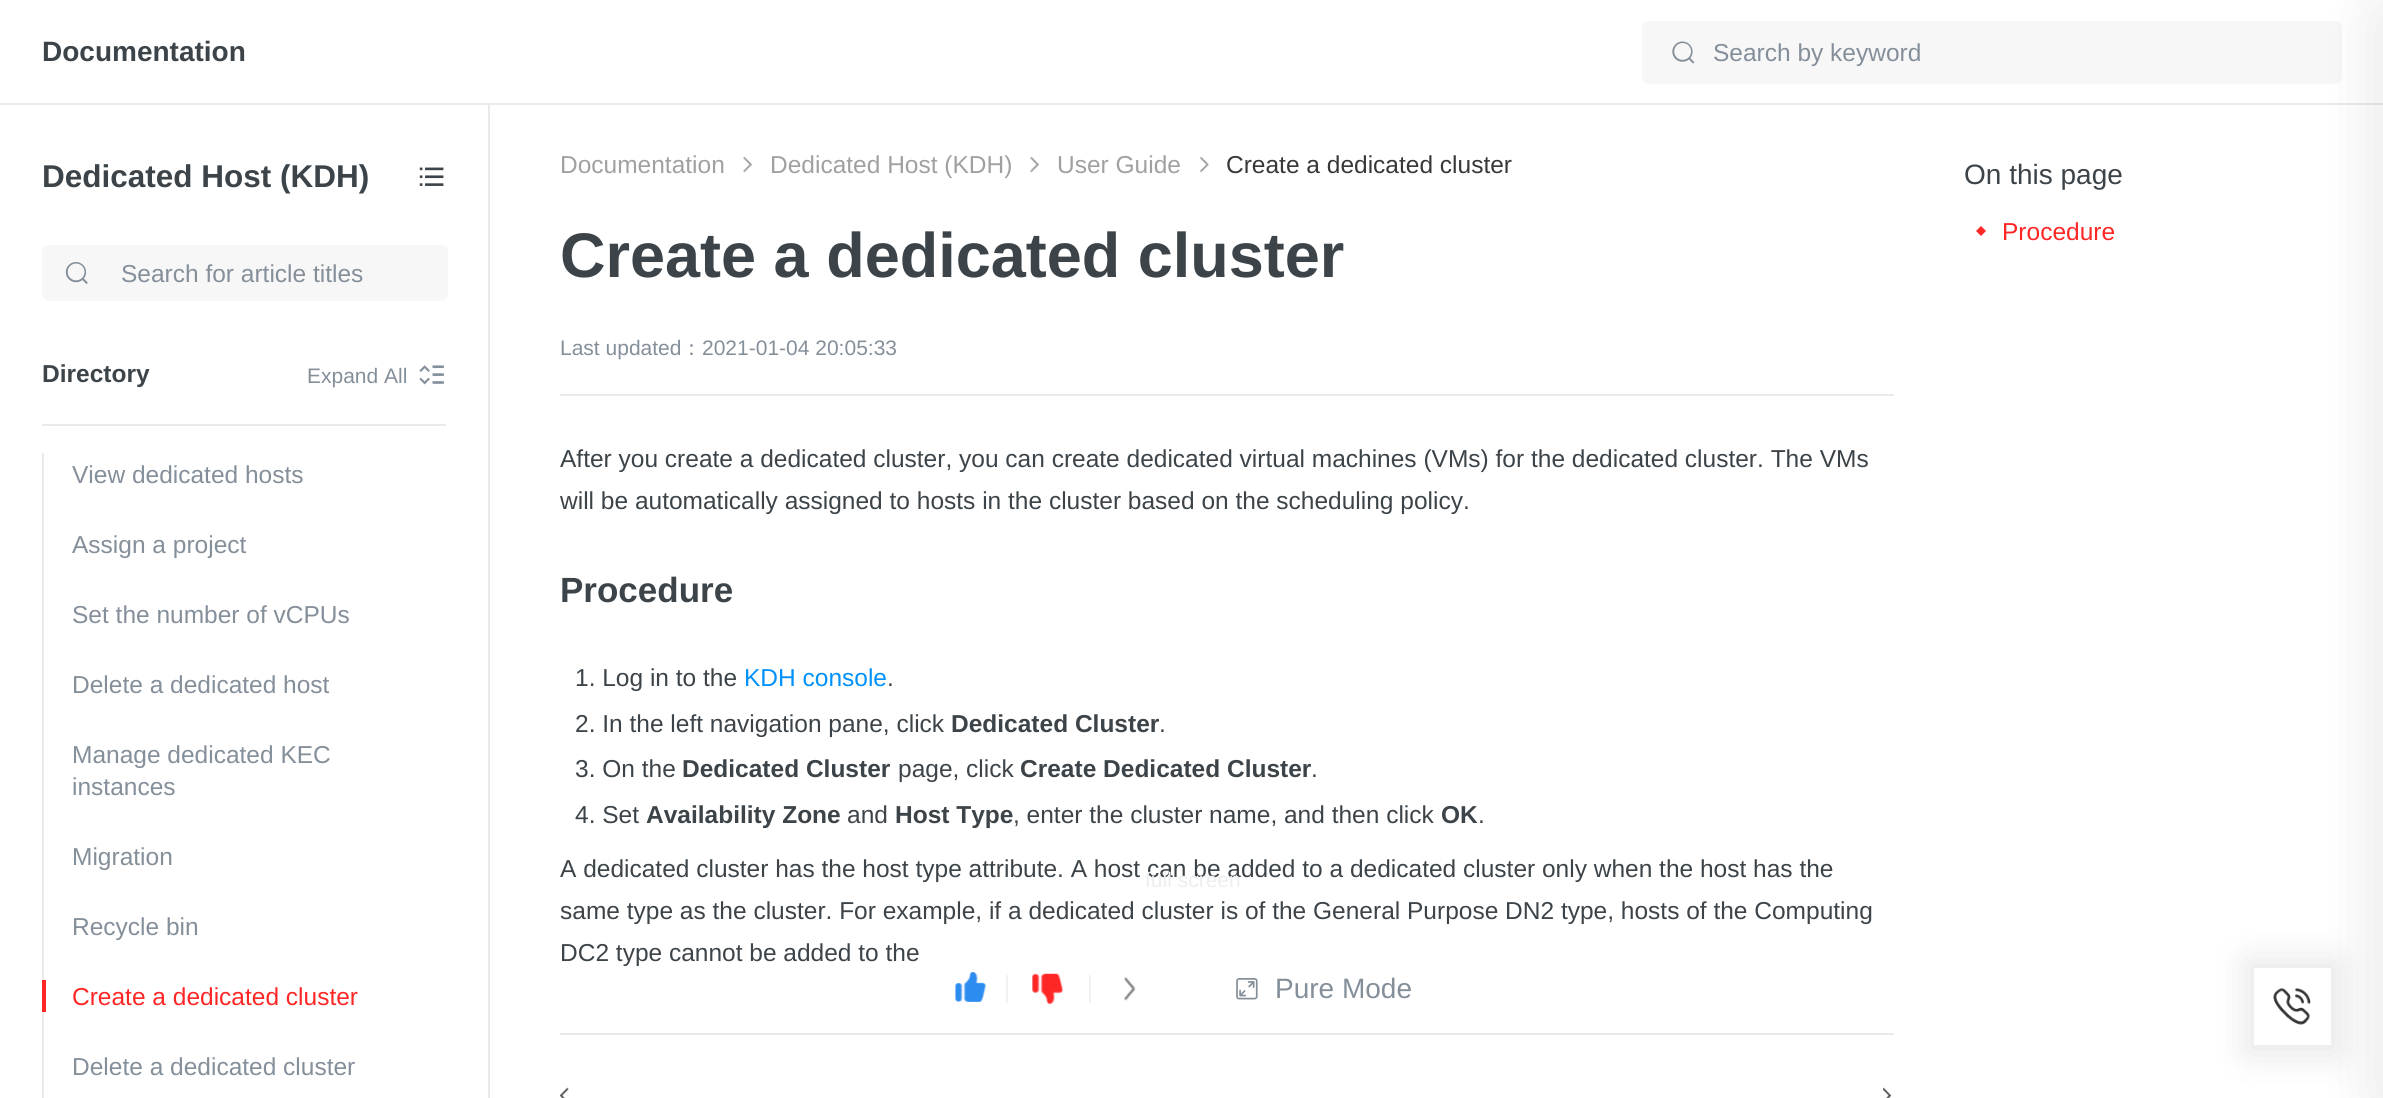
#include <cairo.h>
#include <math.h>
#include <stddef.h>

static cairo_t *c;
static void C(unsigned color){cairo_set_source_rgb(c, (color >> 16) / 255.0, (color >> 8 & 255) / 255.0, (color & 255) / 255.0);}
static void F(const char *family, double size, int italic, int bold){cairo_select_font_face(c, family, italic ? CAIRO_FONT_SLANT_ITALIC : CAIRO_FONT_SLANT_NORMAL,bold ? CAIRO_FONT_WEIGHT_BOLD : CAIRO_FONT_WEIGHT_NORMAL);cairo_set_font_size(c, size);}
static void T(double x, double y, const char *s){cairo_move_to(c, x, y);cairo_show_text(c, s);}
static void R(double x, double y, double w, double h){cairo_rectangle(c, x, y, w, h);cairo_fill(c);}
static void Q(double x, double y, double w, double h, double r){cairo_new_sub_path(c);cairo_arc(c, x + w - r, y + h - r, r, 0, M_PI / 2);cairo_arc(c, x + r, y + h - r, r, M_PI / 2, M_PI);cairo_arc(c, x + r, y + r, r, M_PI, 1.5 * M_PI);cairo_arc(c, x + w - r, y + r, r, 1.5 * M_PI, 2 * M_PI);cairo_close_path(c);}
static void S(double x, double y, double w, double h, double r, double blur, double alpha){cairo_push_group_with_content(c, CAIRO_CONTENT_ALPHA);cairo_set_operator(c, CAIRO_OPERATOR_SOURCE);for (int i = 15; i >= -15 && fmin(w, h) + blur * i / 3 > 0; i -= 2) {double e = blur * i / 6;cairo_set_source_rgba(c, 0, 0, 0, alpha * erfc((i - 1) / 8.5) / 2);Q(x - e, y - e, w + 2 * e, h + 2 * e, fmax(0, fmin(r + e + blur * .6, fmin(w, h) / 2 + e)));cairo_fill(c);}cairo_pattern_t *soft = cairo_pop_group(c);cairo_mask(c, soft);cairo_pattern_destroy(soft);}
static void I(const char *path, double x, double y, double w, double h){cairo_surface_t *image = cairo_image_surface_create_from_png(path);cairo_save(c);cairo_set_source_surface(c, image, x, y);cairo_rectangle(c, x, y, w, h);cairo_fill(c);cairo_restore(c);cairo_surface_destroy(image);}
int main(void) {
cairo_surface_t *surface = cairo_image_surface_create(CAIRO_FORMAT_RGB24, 2383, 1098);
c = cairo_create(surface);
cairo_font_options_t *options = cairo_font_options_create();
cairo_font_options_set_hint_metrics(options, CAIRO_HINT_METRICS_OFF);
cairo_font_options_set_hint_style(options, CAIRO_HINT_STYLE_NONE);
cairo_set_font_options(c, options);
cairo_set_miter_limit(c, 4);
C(0xffffff);
cairo_paint(c);
C(0xeaeaea);
R(0,103,2383,2);
F("Liberation Sans",28,0,1);
C(0x3c4449);
T(42,61,"Documentation");
C(0xf7f7f7);
Q(1642,21,700,63,7);
cairo_fill(c);
I("1.png",1672,41,23,23);
F("Liberation Sans",24.5,0,0);
C(0x848f9a);
T(1713,61,"Search by keyword");
C(0x000000);
S(2247,961,91,93,0,17.5,.1);
C(0xeeeeee);
R(2254,1045,77,2);
C(0xffffff);
R(2254,968,77,77);
I("13.png",2273,988,38,37);
C(0x000000);
S(2370,0,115,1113,18,28,.08);
C(0xeaeaea);
R(488,105,2,993);
F("Liberation Sans",31.5,0,1);
C(0x3c4449);
T(42,187,"Dedicated Host (KDH)");
I("2.png",419,167,25,19);
C(0xf7f7f7);
Q(42,245,406,56,7);
cairo_fill(c);
I("3.png",65,262,23,22);
F("Liberation Sans",24.5,0,0);
C(0x848f9a);
T(121,282,"Search for article titles");
C(0xeaeaea);
R(42,424,404,2);
F("Liberation Sans",24.5,0,1);
C(0x3c4449);
T(42,382,"Directory");
F("Liberation Sans",21,0,0);
C(0x848f9a);
T(307,383,"Expand All");
I("4.png",419,365,25,20);
C(0xeaeaea);
R(42,453,2,645);
F("Liberation Sans",24.5,0,0);
C(0x848f9a);
T(72,483,"View dedicated hosts");
T(72,553,"Assign a project");
T(72,623,"Set the number of vCPUs");
T(72,693,"Delete a dedicated host");
T(72,763,"Manage dedicated KEC");
T(72,795,"instances");
T(72,865,"Migration");
T(72,935,"Recycle bin");
C(0xff2626);
R(42,980,4,32);
T(72,1005,"Create a dedicated cluster");
C(0x848f9a);
T(72,1075,"Delete a dedicated cluster");
C(0xa0a0a0);
T(560,173,"Documentation");
I("5.png",743,156,10,17);
T(770,173,"Dedicated Host (KDH)");
I("5.png",1030,156,10,17);
T(1057,173,"User Guide");
I("6.png",1199,156,10,17);
C(0x383838);
T(1226,173,"Create a dedicated cluster");
F("Liberation Sans",28,0,0);
C(0x3c4449);
T(1964,184,"On this page");
C(0xff2626);
cairo_new_path(c);
cairo_move_to(c,1981,226);
cairo_line_to(c,1986,231);
cairo_line_to(c,1981,236);
cairo_line_to(c,1976,231);
cairo_close_path(c);
cairo_fill(c);
F("Liberation Sans",24.5,0,0);
T(2002,240,"Procedure");
F("Liberation Sans",63,0,1);
C(0x3c4449);
T(560,277,"Create a dedicated cluster");
C(0xeaeaea);
R(560,394,1334,2);
F("Liberation Sans",21,0,0);
C(0x848f9a);
T(560,355,"Last updated");
F("WenQuanYi Zen Hei Medium",21,0,0);
T(681,355,"：");
F("Liberation Sans",21,0,0);
T(702,355,"2021-01-04 20:05:33");
F("Liberation Sans",24.5,0,0);
C(0x3c4449);
T(560,467,"After you create a dedicated cluster, you can create dedicated virtual machines (VMs) for the dedicated cluster. The VMs");
T(560,509,"will be automatically assigned to hosts in the cluster based on the scheduling policy.");
F("Liberation Sans",35,0,1);
T(560,602,"Procedure");
F("Liberation Sans",24.5,0,0);
T(575,686,"1. Log in to the");
C(0x0091fa);
T(744,686,"KDH console");
C(0x3c4449);
T(887,686,".");
T(575,732,"2. In the left navigation pane, click");
F("Liberation Sans",24.5,0,1);
T(951,732,"Dedicated Cluster");
F("Liberation Sans",24.5,0,0);
T(1159,732,".");
T(575,777,"3. On the");
F("Liberation Sans",24.5,0,1);
T(682,777,"Dedicated Cluster");
F("Liberation Sans",24.5,0,0);
T(898,777,"page, click");
F("Liberation Sans",24.5,0,1);
T(1020,777,"Create Dedicated Cluster");
F("Liberation Sans",24.5,0,0);
T(1311,777,".");
T(575,823,"4. Set");
F("Liberation Sans",24.5,0,1);
T(646,823,"Availability Zone");
F("Liberation Sans",24.5,0,0);
T(847,823,"and");
F("Liberation Sans",24.5,0,1);
T(895,823,"Host Type");
F("Liberation Sans",24.5,0,0);
T(1013,823,", enter the cluster name, and then click");
F("Liberation Sans",24.5,0,1);
T(1441,823,"OK");
F("Liberation Sans",24.5,0,0);
T(1478,823,".");
T(560,877,"A dedicated cluster has the host type attribute. A host can be added to a dedicated cluster only when the host has the");
T(560,919,"same type as the cluster. For example, if a dedicated cluster is of the General Purpose DN2 type, hosts of the Computing");
T(560,961,"DC2 type cannot be added to the");
I("7.png",955,972,31,30);
I("8.png",1032,973,31,31);
C(0xf0f2f3);
R(1006,975,2,28);
R(1089,975,2,28);
I("9.png",1124,977,12,24);
F("Liberation Sans",21,0,0);
C(0xedeeef);
T(1145,887,"full screen");
I("10.png",1236,978,22,22);
F("Liberation Sans",28,0,0);
C(0x848f9a);
T(1275,998,"Pure Mode");
C(0xeaeaea);
R(560,1033,1334,2);
I("11.png",560,1087,9,11);
I("12.png",1883,1087,9,11);
cairo_surface_write_to_png(surface, "o.png");
cairo_font_options_destroy(options);
cairo_destroy(c);
cairo_surface_destroy(surface);
return 0;
}
